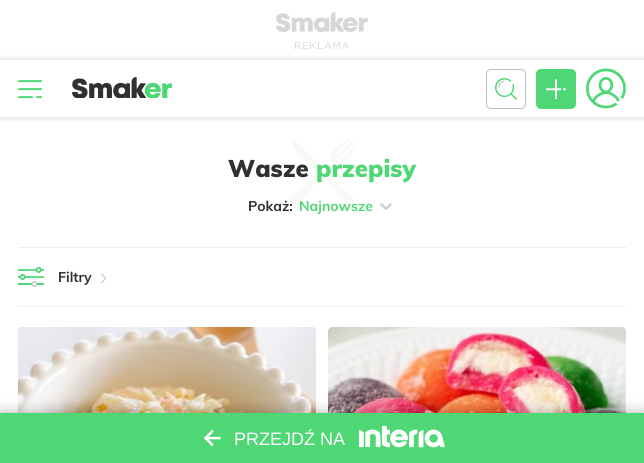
#include <cairo.h>
#include <math.h>
#include <stddef.h>

static cairo_t *c;
static void C(unsigned color){cairo_set_source_rgb(c, (color >> 16) / 255.0, (color >> 8 & 255) / 255.0, (color & 255) / 255.0);}
static void F(const char *family, double size, int italic, int bold){cairo_select_font_face(c, family, italic ? CAIRO_FONT_SLANT_ITALIC : CAIRO_FONT_SLANT_NORMAL,bold ? CAIRO_FONT_WEIGHT_BOLD : CAIRO_FONT_WEIGHT_NORMAL);cairo_set_font_size(c, size);}
static void T(double x, double y, const char *s){cairo_move_to(c, x, y);cairo_show_text(c, s);}
static void R(double x, double y, double w, double h){cairo_rectangle(c, x, y, w, h);cairo_fill(c);}
static void Q(double x, double y, double w, double h, double r){cairo_new_sub_path(c);cairo_arc(c, x + w - r, y + h - r, r, 0, M_PI / 2);cairo_arc(c, x + r, y + h - r, r, M_PI / 2, M_PI);cairo_arc(c, x + r, y + r, r, M_PI, 1.5 * M_PI);cairo_arc(c, x + w - r, y + r, r, 1.5 * M_PI, 2 * M_PI);cairo_close_path(c);}
static void S(double x, double y, double w, double h, double r, double blur, double alpha){cairo_push_group_with_content(c, CAIRO_CONTENT_ALPHA);cairo_set_operator(c, CAIRO_OPERATOR_SOURCE);for (int i = 15; i >= -15 && fmin(w, h) + blur * i / 3 > 0; i -= 2) {double e = blur * i / 6;cairo_set_source_rgba(c, 0, 0, 0, alpha * erfc((i - 1) / 8.5) / 2);Q(x - e, y - e, w + 2 * e, h + 2 * e, fmax(0, fmin(r + e + blur * .6, fmin(w, h) / 2 + e)));cairo_fill(c);}cairo_pattern_t *soft = cairo_pop_group(c);cairo_mask(c, soft);cairo_pattern_destroy(soft);}
static void I(const char *path, double x, double y, double w, double h){cairo_surface_t *image = cairo_image_surface_create_from_png(path);cairo_save(c);cairo_set_source_surface(c, image, x, y);cairo_rectangle(c, x, y, w, h);cairo_fill(c);cairo_restore(c);cairo_surface_destroy(image);}
int main(void) {
cairo_surface_t *surface = cairo_image_surface_create(CAIRO_FORMAT_RGB24, 644, 463);
c = cairo_create(surface);
cairo_font_options_t *options = cairo_font_options_create();
cairo_font_options_set_hint_metrics(options, CAIRO_HINT_METRICS_OFF);
cairo_font_options_set_hint_style(options, CAIRO_HINT_STYLE_NONE);
cairo_set_font_options(c, options);
cairo_set_miter_limit(c, 4);
C(0xffffff);
cairo_paint(c);
I("1.png",276,12,92,20);
I("2.png",295,42,54,7);
cairo_save(c);
cairo_set_fill_rule(c,CAIRO_FILL_RULE_EVEN_ODD);
cairo_new_path(c);
cairo_move_to(c,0,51);
cairo_line_to(c,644,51);
cairo_line_to(c,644,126);
cairo_line_to(c,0,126);
cairo_close_path(c);
cairo_move_to(c,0,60);
cairo_line_to(c,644,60);
cairo_line_to(c,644,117);
cairo_line_to(c,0,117);
cairo_close_path(c);
cairo_clip(c);
C(0x000000);
S(-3,57,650,63,0,1.5,.08);
cairo_restore(c);
I("3.png",18,80,24,19);
I("4.png",72,77,100,21);
Q(486.5,69.5,39,39,4.5);
C(0xb9c0be);
cairo_set_line_width(c,1);
cairo_stroke(c);
I("5.png",495,78,22,22);
C(0x4fd675);
Q(536,69,40,40,5);
cairo_fill(c);
I("6.png",546,79,20,21);
I("7.png",586,68,40,41);
I("8.png",289,138,68,70);
F("Muli Black",24,0,0);
C(0x2e312f);
T(228,177,"Wasze");
C(0x4fd675);
T(316,177,"przepisy");
F("Muli",14,0,1);
C(0x2e312f);
T(248,211,"Pokaż:");
C(0x4fd675);
T(299,211,"Najnowsze");
I("9.png",380,203,12,7);
C(0xededeb);
R(18,247,608,1);
R(18,306,608,1);
I("10.png",18,266,26,21);
C(0x2e312f);
T(58,282,"Filtry");
I("11.png",101,273,5,10);
C(0xd3d3d3);
cairo_new_path(c);
cairo_move_to(c,23,327);
cairo_line_to(c,311,327);
cairo_curve_to(c,314,327,316,329,316,332);
cairo_line_to(c,316,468);
cairo_line_to(c,18,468);
cairo_line_to(c,18,332);
cairo_curve_to(c,18,329,20,327,23,327);
cairo_close_path(c);
cairo_fill(c);
I("12.png",18,327,298,86);
cairo_new_path(c);
cairo_move_to(c,333,327);
cairo_line_to(c,621,327);
cairo_curve_to(c,624,327,626,329,626,332);
cairo_line_to(c,626,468);
cairo_line_to(c,328,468);
cairo_line_to(c,328,332);
cairo_curve_to(c,328,329,330,327,333,327);
cairo_close_path(c);
cairo_fill(c);
I("13.png",328,327,298,86);
C(0x000000);
S(0,413,644,50,0,7.5,.3);
C(0x4fd675);
R(0,413,644,50);
I("14.png",204,430,17,16);
F("Liberation Sans",18,0,0);
C(0xffffff);
T(234,445,"PRZEJDŹ NA");
I("15.png",359,426,86,22);
cairo_surface_write_to_png(surface, "o.png");
cairo_font_options_destroy(options);
cairo_destroy(c);
cairo_surface_destroy(surface);
return 0;
}
